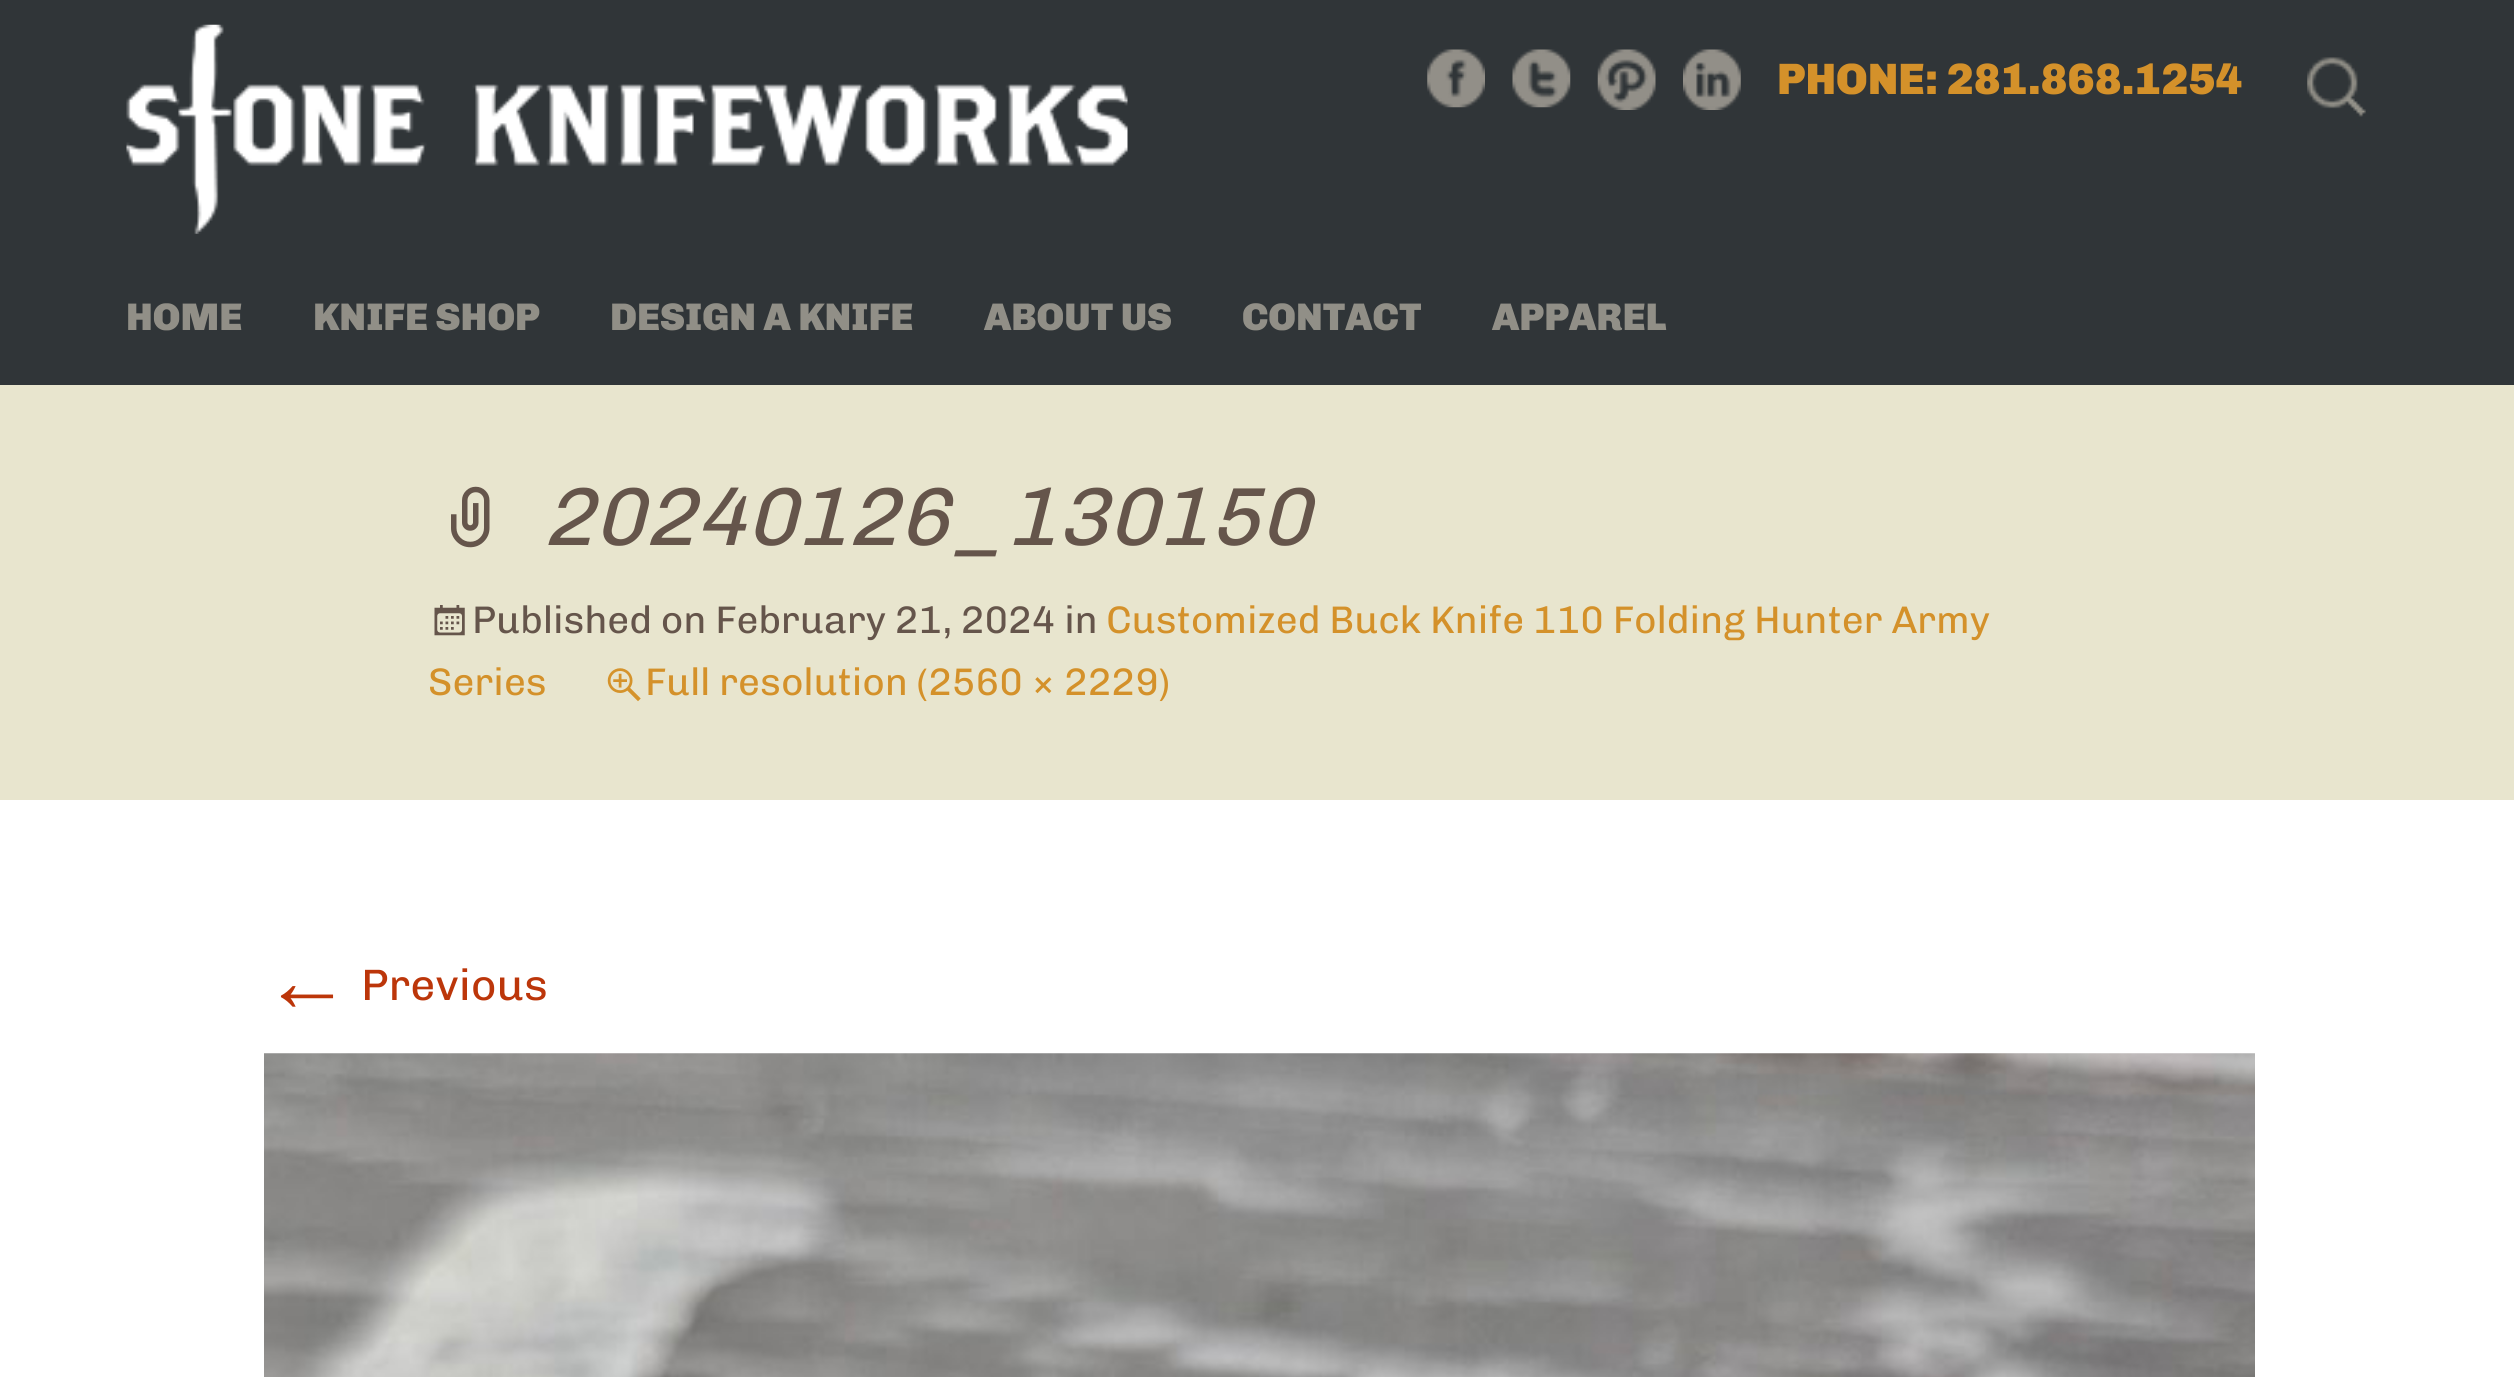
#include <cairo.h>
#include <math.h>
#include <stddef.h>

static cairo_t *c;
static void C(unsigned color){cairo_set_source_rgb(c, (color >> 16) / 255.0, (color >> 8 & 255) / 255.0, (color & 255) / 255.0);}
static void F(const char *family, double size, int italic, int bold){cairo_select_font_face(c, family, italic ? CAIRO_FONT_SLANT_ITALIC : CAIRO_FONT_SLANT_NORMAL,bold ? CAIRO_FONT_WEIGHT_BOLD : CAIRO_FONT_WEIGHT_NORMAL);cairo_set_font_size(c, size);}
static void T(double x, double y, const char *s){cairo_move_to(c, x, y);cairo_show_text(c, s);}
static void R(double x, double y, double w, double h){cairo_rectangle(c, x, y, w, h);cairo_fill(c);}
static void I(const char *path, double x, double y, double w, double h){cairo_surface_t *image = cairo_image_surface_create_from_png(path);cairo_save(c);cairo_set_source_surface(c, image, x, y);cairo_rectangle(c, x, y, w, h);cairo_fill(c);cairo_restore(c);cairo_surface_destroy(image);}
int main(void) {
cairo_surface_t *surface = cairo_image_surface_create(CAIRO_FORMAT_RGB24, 2514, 1377);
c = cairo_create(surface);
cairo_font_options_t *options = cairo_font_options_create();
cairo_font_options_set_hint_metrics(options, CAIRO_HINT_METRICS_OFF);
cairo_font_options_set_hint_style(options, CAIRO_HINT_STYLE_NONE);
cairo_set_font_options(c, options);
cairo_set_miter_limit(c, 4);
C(0x303538);
cairo_paint(c);
I("1.png",126,24,1002,210);
I("2.png",1427,49,58,59);
I("3.png",1512,49,59,59);
I("4.png",1597,49,59,61);
I("5.png",1683,49,58,61);
F("Chivo Black",44,0,0);
C(0xd4912a);
T(1777,94,"PHONE: 281.868.1254");
I("6.png",2307,57,59,60);
F("Chivo Black",38.5,0,0);
C(0x918f87);
T(126,330,"HOME");
T(313,330,"KNIFE SHOP");
T(610,330,"DESIGN A KNIFE");
T(984,330,"ABOUT US");
T(1242,330,"CONTACT");
T(1492,330,"APPAREL");
C(0xe8e5ce);
R(0,385,2514,415);
I("7.png",451,486,39,62);
F("Chivo",82.5,1,0);
C(0x65554b);
T(543,545,"20240126_130150");
I("8.png",434,605,31,31);
F("Chivo",38.5,0,0);
T(472,633,"Published on February 21, 2024 in");
C(0xd4912a);
T(1106,633,"Customized Buck Knife 110 Folding Hunter Army");
T(428,695,"Series");
I("9.png",607,668,34,34);
T(645,695,"Full resolution (2560 × 2229)");
C(0xffffff);
R(0,800,2514,577);
F("Liberation Sans",88,0,0);
C(0xbc360a);
T(263,1011,"←");
F("Chivo",44,0,0);
T(361,1000,"Previous");
I("10.png",264,1053,1991,324);
cairo_surface_write_to_png(surface, "o.png");
cairo_font_options_destroy(options);
cairo_destroy(c);
cairo_surface_destroy(surface);
return 0;
}
